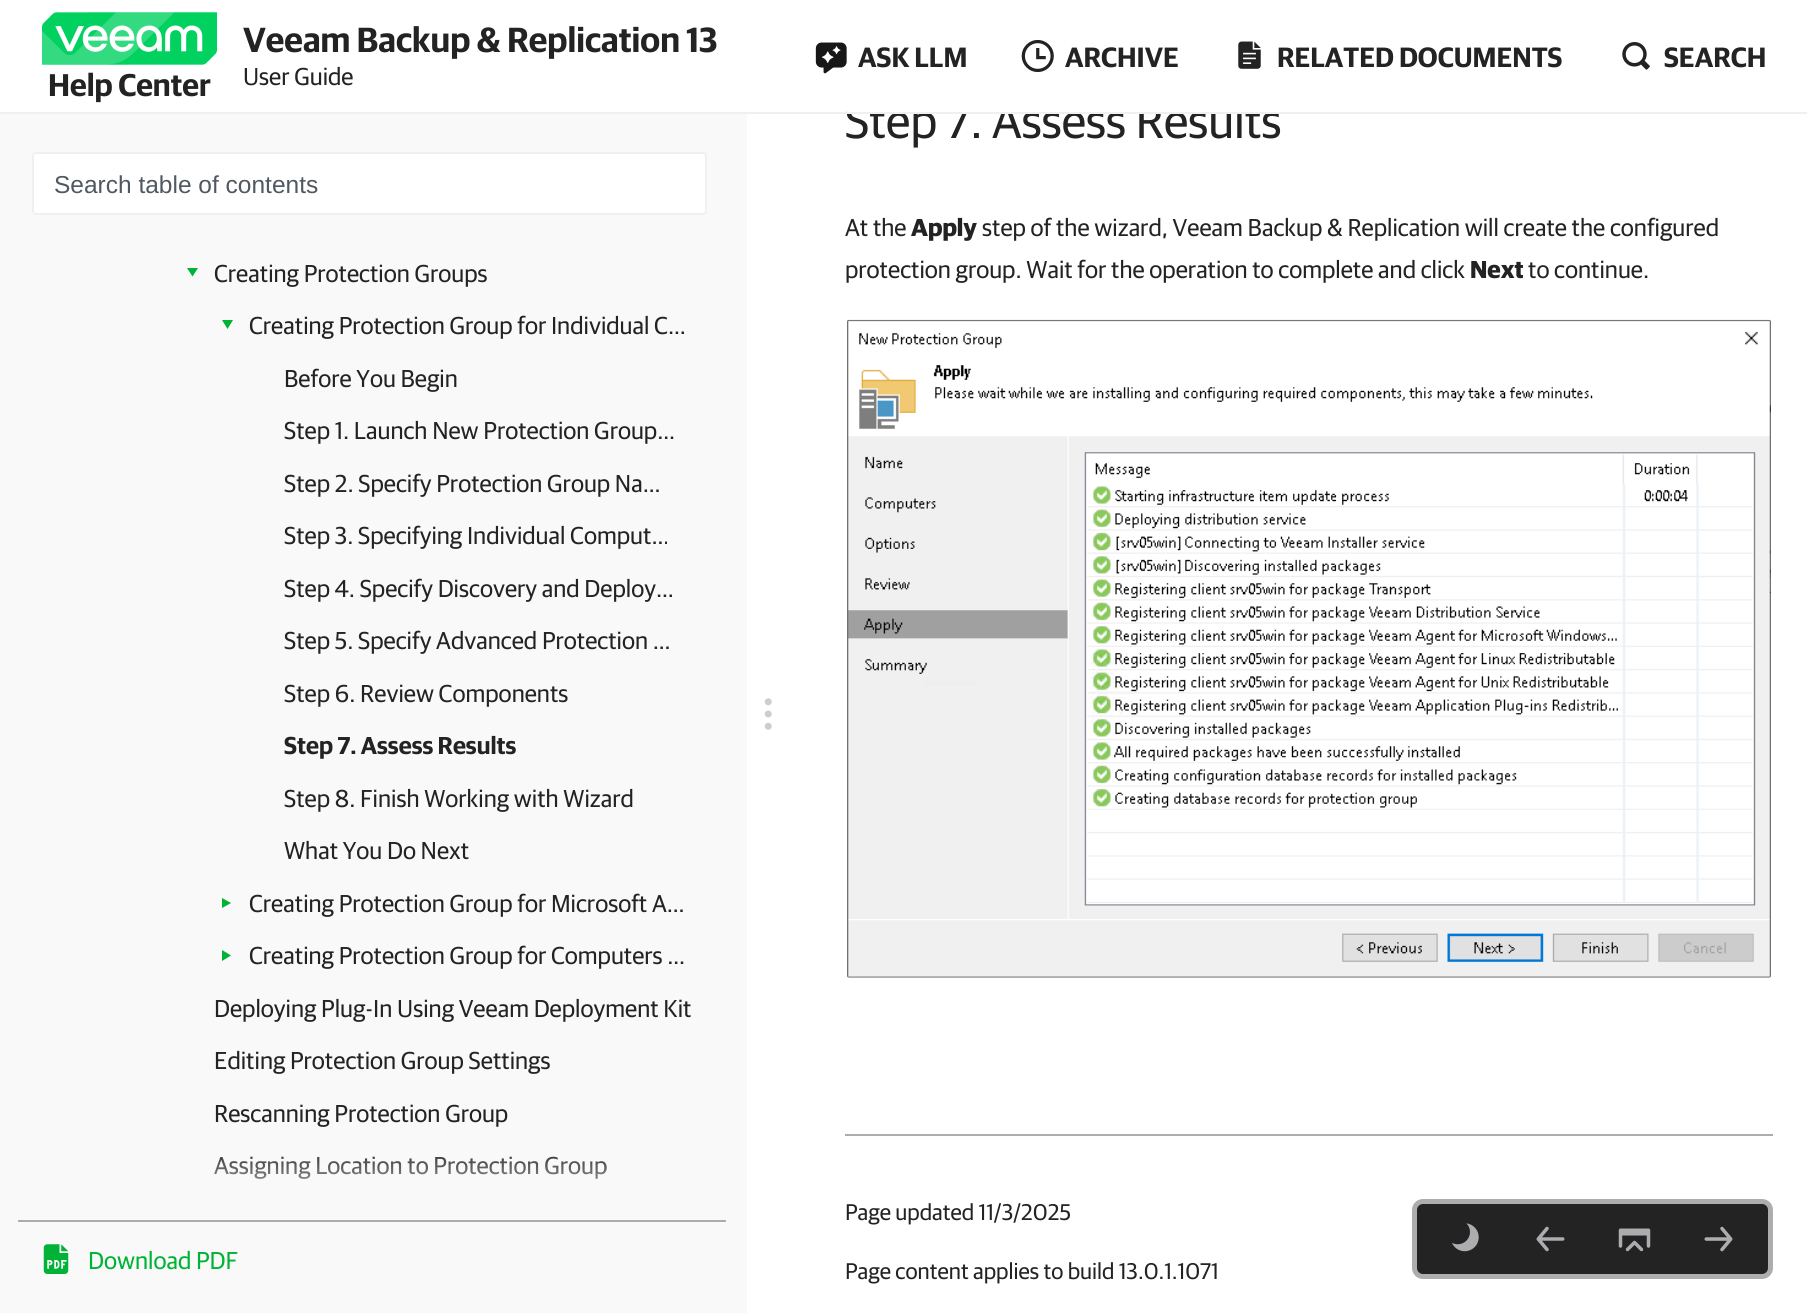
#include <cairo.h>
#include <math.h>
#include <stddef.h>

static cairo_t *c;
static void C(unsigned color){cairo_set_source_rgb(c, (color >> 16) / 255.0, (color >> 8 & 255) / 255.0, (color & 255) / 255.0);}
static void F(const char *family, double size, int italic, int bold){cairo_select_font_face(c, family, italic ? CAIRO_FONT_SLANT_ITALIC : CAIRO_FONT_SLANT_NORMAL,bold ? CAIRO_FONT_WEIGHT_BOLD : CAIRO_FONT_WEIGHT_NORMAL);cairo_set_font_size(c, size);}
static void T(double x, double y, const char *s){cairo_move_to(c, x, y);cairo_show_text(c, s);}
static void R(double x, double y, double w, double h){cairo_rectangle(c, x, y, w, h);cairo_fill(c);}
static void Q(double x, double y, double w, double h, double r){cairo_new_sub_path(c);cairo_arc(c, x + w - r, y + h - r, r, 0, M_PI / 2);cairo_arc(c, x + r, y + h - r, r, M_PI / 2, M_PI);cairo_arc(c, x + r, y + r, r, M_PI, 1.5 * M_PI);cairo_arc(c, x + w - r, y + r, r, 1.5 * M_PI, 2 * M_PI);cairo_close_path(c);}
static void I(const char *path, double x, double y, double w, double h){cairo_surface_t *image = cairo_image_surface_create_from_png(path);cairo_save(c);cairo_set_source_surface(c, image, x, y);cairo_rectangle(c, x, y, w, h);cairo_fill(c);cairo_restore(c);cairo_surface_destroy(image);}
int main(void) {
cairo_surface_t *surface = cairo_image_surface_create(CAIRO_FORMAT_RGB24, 1807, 1313);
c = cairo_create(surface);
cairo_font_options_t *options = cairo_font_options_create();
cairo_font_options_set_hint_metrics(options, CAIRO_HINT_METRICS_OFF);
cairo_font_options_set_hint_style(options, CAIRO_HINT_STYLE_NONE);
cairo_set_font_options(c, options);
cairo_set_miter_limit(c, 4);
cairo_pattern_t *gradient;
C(0xffffff);
cairo_paint(c);
F("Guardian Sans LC",49,0,0);
C(0x232323);
T(845,138,"Step 7. Assess Results");
C(0xffffff);
R(847,101,407,11);
C(0xf0f0f0);
R(0,112,1807,2);
I("1.png",42,12,175,53);
F("Guardian Sans LC SemiBold",31.5,0,0);
C(0x232323);
T(48,96,"Help Center");
F("Guardian Sans LC SemiBold",35,0,0);
T(243,52,"Veeam Backup & Replication 13");
F("Guardian Sans LC",24.5,0,0);
T(243,85,"User Guide");
I("2.png",815,42,32,32);
F("Guardian Sans LC SemiBold",28,0,0);
T(858,67,"ASK LLM");
I("3.png",1021,39,33,34);
T(1065,67,"ARCHIVE");
I("4.png",1238,41,23,28);
T(1277,67,"RELATED DOCUMENTS");
I("5.png",1622,42,28,28);
T(1664,67,"SEARCH");
C(0xf9f9f9);
R(0,114,747,1199);
C(0xffffff);
Q(33,153,673,61,3);
cairo_fill_preserve(c);
C(0xf0f0f0);
cairo_stroke(c);
F("Liberation Sans",24.5,0,0);
C(0x505861);
T(54,193,"Search table of contents");
C(0x00b336);
cairo_new_path(c);
cairo_move_to(c,187,268);
cairo_line_to(c,198,268);
cairo_line_to(c,192.5,276.5);
cairo_close_path(c);
cairo_fill(c);
F("Guardian Sans LC",24.5,0,0);
C(0x232323);
T(214,282,"Creating Protection Groups");
C(0x00b336);
cairo_new_path(c);
cairo_move_to(c,222,320);
cairo_line_to(c,233,320);
cairo_line_to(c,227.5,329);
cairo_close_path(c);
cairo_fill(c);
C(0x232323);
T(249,334,"Creating Protection Group for Individual C…");
T(284,387,"Before You Begin");
T(284,439,"Step 1. Launch New Protection Group…");
T(284,492,"Step 2. Specify Protection Group Na…");
T(284,544,"Step 3. Specifying Individual Comput…");
T(284,597,"Step 4. Specify Discovery and Deploy…");
T(284,649,"Step 5. Specify Advanced Protection …");
T(284,702,"Step 6. Review Components");
F("Guardian Sans LC SemiBold",24.5,0,0);
T(284,754,"Step 7. Assess Results");
F("Guardian Sans LC",24.5,0,0);
T(284,807,"Step 8. Finish Working with Wizard");
T(284,859,"What You Do Next");
C(0x00b336);
cairo_new_path(c);
cairo_move_to(c,222,908);
cairo_line_to(c,222,898);
cairo_line_to(c,231,903);
cairo_close_path(c);
cairo_fill(c);
C(0x232323);
T(249,912,"Creating Protection Group for Microsoft A…");
C(0x00b336);
cairo_new_path(c);
cairo_move_to(c,222,961);
cairo_line_to(c,222,950);
cairo_line_to(c,231,955.5);
cairo_close_path(c);
cairo_fill(c);
C(0x232323);
T(249,964,"Creating Protection Group for Computers …");
T(214,1017,"Deploying Plug-In Using Veeam Deployment Kit");
T(214,1069,"Editing Protection Group Settings");
T(214,1122,"Rescanning Protection Group");
T(214,1174,"Assigning Location to Protection Group");
gradient = cairo_pattern_create_linear(362,1150,362,1220);
cairo_pattern_add_color_stop_rgba(gradient,0,0.976,0.976,0.976,.05);
cairo_pattern_add_color_stop_rgba(gradient,1,0.976,0.976,0.976,1);
cairo_set_source(c,gradient);
cairo_pattern_destroy(gradient);
R(213,1156,393,23);
C(0xadacaf);
R(18,1220,708,2);
I("6.png",43,1244,26,30);
C(0x00b336);
T(88,1269,"Download PDF");
I("7.png",764,698,8,32);
C(0x232323);
T(845,236,"At the");
F("Guardian Sans LC",24.5,0,1);
T(911,236,"Apply");
F("Guardian Sans LC",24.5,0,0);
T(982,236,"step of the wizard, Veeam Backup & Replication will create the configured");
T(845,278,"protection group. Wait for the operation to complete and click");
F("Guardian Sans LC",24.5,0,1);
T(1470,278,"Next");
F("Guardian Sans LC",24.5,0,0);
T(1528,278,"to continue.");
I("8.png",847,319,924,659);
C(0xadacaf);
R(845,1134,928,2);
F("Guardian Sans LC",22.75,0,0);
C(0x232323);
T(845,1220,"Page updated 11/3/2025");
T(845,1279,"Page content applies to build 13.0.1.1071");
Q(1414.5,1201.5,356,75,8.5);
cairo_fill_preserve(c);
C(0xadacaf);
cairo_set_line_width(c,5);
cairo_stroke(c);
I("9.png",1452,1223,27,29);
I("10.png",1536,1226,29,26);
I("11.png",1618,1228,33,24);
I("12.png",1704,1226,29,26);
cairo_surface_write_to_png(surface, "o.png");
cairo_font_options_destroy(options);
cairo_destroy(c);
cairo_surface_destroy(surface);
return 0;
}
